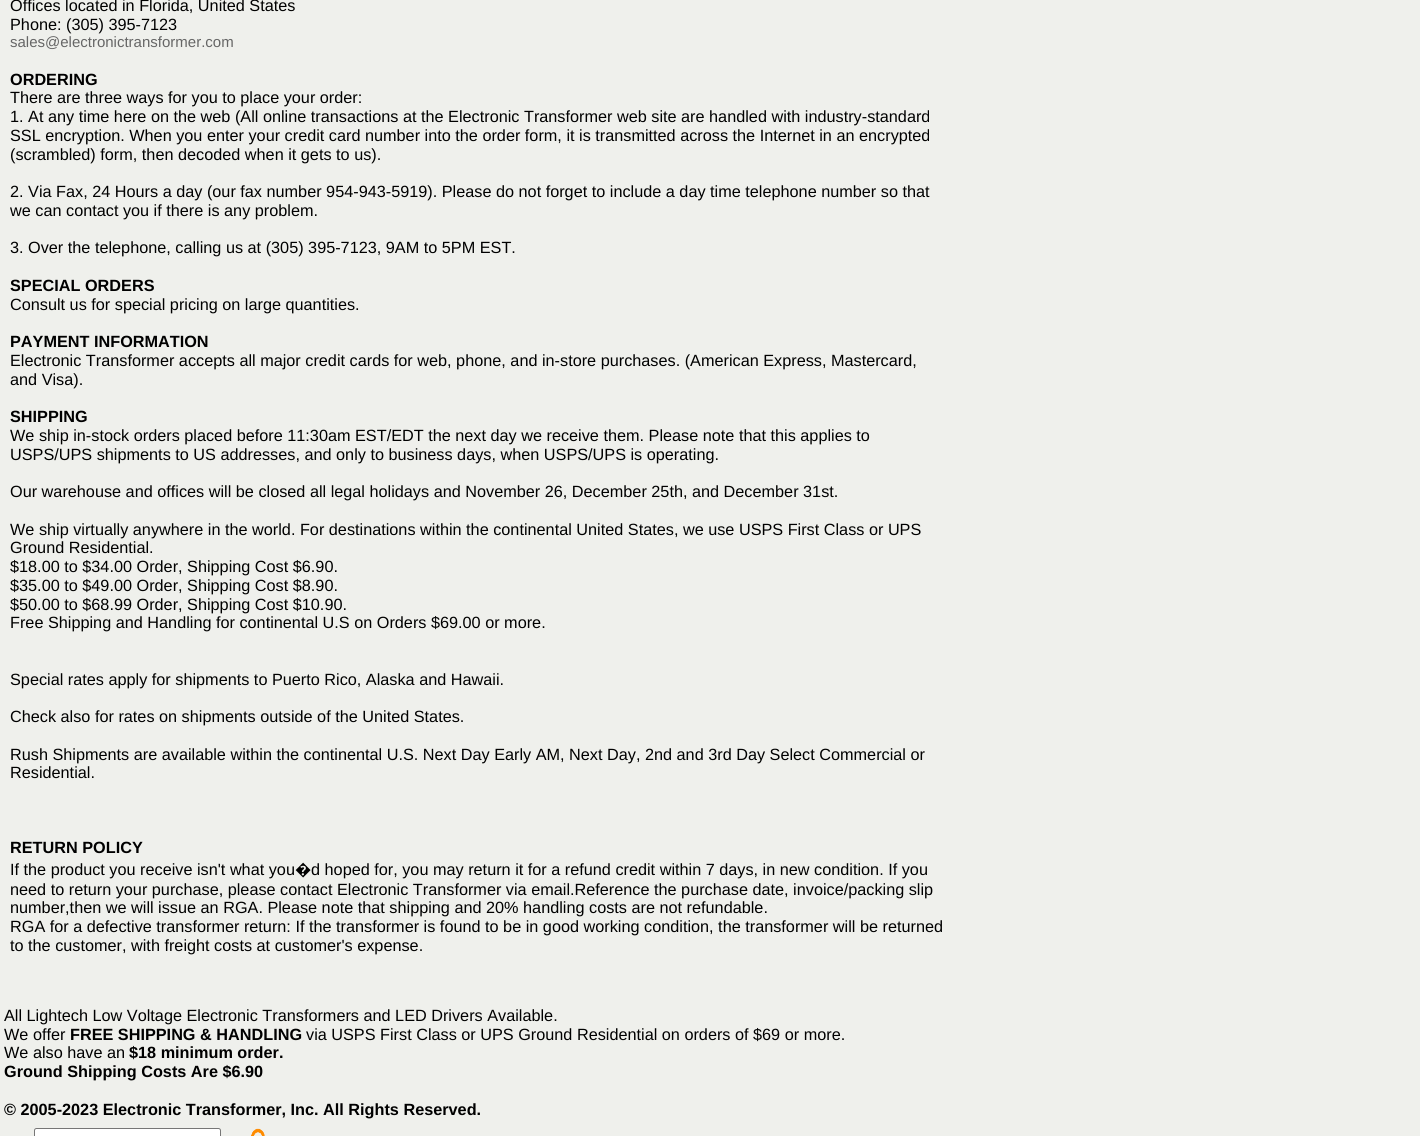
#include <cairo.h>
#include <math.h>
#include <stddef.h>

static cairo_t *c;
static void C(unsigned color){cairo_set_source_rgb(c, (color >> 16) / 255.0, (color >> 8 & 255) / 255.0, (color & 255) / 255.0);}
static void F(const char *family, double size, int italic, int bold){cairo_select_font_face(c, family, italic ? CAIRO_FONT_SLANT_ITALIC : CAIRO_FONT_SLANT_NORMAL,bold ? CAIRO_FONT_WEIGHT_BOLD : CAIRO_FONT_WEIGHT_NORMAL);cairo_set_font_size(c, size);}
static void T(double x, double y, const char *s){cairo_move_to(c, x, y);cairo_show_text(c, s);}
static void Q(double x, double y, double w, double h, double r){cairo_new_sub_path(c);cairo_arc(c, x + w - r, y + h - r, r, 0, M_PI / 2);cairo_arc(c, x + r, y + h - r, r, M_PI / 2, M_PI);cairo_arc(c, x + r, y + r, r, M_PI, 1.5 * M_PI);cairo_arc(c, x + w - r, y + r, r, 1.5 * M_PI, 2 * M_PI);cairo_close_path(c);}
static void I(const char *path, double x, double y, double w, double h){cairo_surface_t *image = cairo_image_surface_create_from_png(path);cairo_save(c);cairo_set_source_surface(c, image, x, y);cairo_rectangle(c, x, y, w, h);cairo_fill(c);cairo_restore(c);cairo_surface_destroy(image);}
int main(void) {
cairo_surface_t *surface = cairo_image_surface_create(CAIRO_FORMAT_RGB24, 1420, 1136);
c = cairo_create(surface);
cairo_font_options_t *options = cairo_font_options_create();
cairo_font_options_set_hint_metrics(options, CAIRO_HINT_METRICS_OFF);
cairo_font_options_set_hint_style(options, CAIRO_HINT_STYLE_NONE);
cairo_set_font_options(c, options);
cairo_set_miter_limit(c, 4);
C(0xeff0ec);
cairo_paint(c);
F("Liberation Sans",16.25,0,0);
C(0x000000);
T(10,11,"Offices located in Florida, United States");
T(10,30,"Phone: (305) 395-7123");
F("Liberation Sans",15,0,0);
C(0x666666);
T(10,47,"sales@electronictransformer.com");
F("Liberation Sans",16.25,0,1);
C(0x000000);
T(10,85,"ORDERING");
F("Liberation Sans",16.25,0,0);
T(10,103,"There are three ways for you to place your order:");
T(10,122,"1. At any time here on the web (All online transactions at the Electronic Transformer web site are handled with industry-standard");
T(10,141,"SSL encryption. When you enter your credit card number into the order form, it is transmitted across the Internet in an encrypted");
T(10,160,"(scrambled) form, then decoded when it gets to us).");
T(10,197,"2. Via Fax, 24 Hours a day (our fax number 954-943-5919). Please do not forget to include a day time telephone number so that");
T(10,216,"we can contact you if there is any problem.");
T(10,253,"3. Over the telephone, calling us at (305) 395-7123, 9AM to 5PM EST.");
F("Liberation Sans",16.25,0,1);
T(10,291,"SPECIAL ORDERS");
F("Liberation Sans",16.25,0,0);
T(10,310,"Consult us for special pricing on large quantities.");
F("Liberation Sans",16.25,0,1);
T(10,347,"PAYMENT INFORMATION");
F("Liberation Sans",16.25,0,0);
T(10,366,"Electronic Transformer accepts all major credit cards for web, phone, and in-store purchases. (American Express, Mastercard,");
T(10,385,"and Visa).");
F("Liberation Sans",16.25,0,1);
T(10,422,"SHIPPING");
F("Liberation Sans",16.25,0,0);
T(10,441,"We ship in-stock orders placed before 11:30am EST/EDT the next day we receive them. Please note that this applies to");
T(10,460,"USPS/UPS shipments to US addresses, and only to business days, when USPS/UPS is operating.");
T(10,497,"Our warehouse and offices will be closed all legal holidays and November 26, December 25th, and December 31st.");
T(10,535,"We ship virtually anywhere in the world. For destinations within the continental United States, we use USPS First Class or UPS");
T(10,553,"Ground Residential.");
T(10,572,"$18.00 to $34.00 Order, Shipping Cost $6.90.");
T(10,591,"$35.00 to $49.00 Order, Shipping Cost $8.90.");
T(10,610,"$50.00 to $68.99 Order, Shipping Cost $10.90.");
T(10,628,"Free Shipping and Handling for continental U.S on Orders $69.00 or more.");
T(10,685,"Special rates apply for shipments to Puerto Rico, Alaska and Hawaii.");
T(10,722,"Check also for rates on shipments outside of the United States.");
T(10,760,"Rush Shipments are available within the continental U.S. Next Day Early AM, Next Day, 2nd and 3rd Day Select Commercial or");
T(10,778,"Residential.");
F("Liberation Sans",16.25,0,1);
T(10,853,"RETURN POLICY");
F("Liberation Sans",16.25,0,0);
T(10,875,"If the product you receive isn't what you");
F("Noto Sans",16.25,0,0);
T(295,875,"�");
F("Liberation Sans",16.25,0,0);
T(311,875,"d hoped for, you may return it for a refund credit within 7 days, in new condition. If you");
T(10,895,"need to return your purchase, please contact Electronic Transformer via email.Reference the purchase date, invoice/packing slip");
T(10,913,"number,then we will issue an RGA. Please note that shipping and 20% handling costs are not refundable.");
T(10,932,"RGA for a defective transformer return: If the transformer is found to be in good working condition, the transformer will be returned");
T(10,951,"to the customer, with freight costs at customer's expense.");
T(4,1021,"All Lightech Low Voltage Electronic Transformers and LED Drivers Available.");
T(4,1040,"We offer");
F("Liberation Sans",16.25,0,1);
T(70,1040,"FREE SHIPPING & HANDLING");
F("Liberation Sans",16.25,0,0);
T(306,1040,"via USPS First Class or UPS Ground Residential on orders of $69 or more.");
T(4,1058,"We also have an");
F("Liberation Sans",16.25,0,1);
T(129,1058,"$18 minimum order.");
T(4,1077,"Ground Shipping Costs Are $6.90");
T(4,1115,"© 2005-2023 Electronic Transformer, Inc. All Rights Reserved.");
C(0xffffff);
Q(34.5,1128.5,186,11,2);
cairo_fill_preserve(c);
C(0x767676);
cairo_set_line_width(c,1);
cairo_stroke(c);
I("1.png",251,1128,14,8);
cairo_surface_write_to_png(surface, "o.png");
cairo_font_options_destroy(options);
cairo_destroy(c);
cairo_surface_destroy(surface);
return 0;
}
